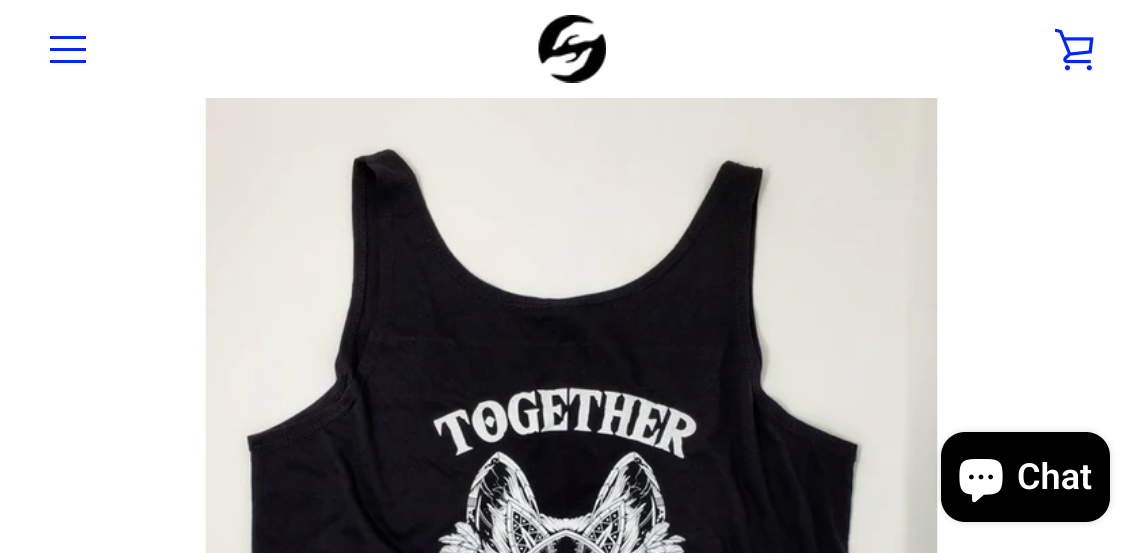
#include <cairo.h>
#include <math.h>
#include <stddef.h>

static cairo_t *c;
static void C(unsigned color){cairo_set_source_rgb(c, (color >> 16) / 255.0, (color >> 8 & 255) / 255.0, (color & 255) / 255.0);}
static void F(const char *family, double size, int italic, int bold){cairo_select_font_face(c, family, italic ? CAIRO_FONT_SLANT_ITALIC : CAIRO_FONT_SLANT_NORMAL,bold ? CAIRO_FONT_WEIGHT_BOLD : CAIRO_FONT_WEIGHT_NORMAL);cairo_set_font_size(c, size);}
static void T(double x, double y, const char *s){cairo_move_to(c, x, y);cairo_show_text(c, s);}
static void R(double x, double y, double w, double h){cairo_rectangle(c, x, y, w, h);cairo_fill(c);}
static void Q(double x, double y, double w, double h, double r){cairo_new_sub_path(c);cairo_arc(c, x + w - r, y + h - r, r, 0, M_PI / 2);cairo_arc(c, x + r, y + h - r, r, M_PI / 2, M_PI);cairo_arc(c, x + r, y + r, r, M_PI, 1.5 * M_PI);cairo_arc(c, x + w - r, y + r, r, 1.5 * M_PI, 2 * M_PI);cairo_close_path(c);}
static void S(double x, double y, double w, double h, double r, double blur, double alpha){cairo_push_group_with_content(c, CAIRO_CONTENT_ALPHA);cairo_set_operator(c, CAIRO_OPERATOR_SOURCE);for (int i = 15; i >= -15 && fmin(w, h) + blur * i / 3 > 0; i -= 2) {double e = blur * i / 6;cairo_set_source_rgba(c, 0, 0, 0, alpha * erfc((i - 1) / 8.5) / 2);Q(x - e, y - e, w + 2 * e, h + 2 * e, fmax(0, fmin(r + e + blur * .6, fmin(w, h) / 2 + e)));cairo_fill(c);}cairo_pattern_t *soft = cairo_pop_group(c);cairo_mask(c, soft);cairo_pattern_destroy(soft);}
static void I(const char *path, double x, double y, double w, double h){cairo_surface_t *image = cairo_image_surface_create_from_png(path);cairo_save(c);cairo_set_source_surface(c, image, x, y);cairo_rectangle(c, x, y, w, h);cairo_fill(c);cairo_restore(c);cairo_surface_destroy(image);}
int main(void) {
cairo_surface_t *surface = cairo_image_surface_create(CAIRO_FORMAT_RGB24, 1143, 553);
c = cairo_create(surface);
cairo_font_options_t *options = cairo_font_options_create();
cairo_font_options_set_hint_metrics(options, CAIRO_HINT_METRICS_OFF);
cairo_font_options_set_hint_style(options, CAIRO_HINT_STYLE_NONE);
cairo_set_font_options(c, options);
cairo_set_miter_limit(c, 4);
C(0xffffff);
cairo_paint(c);
C(0x0026fd);
R(50,36,36,3);
R(50,48,36,3);
R(50,60,36,3);
I("1.png",538,15,68,68);
I("2.png",1055,28,39,43);
I("3.png",205,98,733,455);
C(0x000000);
S(941,432,169,90,24,4,.15);
C(0x000000);
Q(941,432,169,90,24);
cairo_fill(c);
I("4.png",959,459,44,44);
F("Roboto SemiBold",36,0,0);
C(0xffffff);
T(1017,489,"Chat");
cairo_surface_write_to_png(surface, "o.png");
cairo_font_options_destroy(options);
cairo_destroy(c);
cairo_surface_destroy(surface);
return 0;
}
